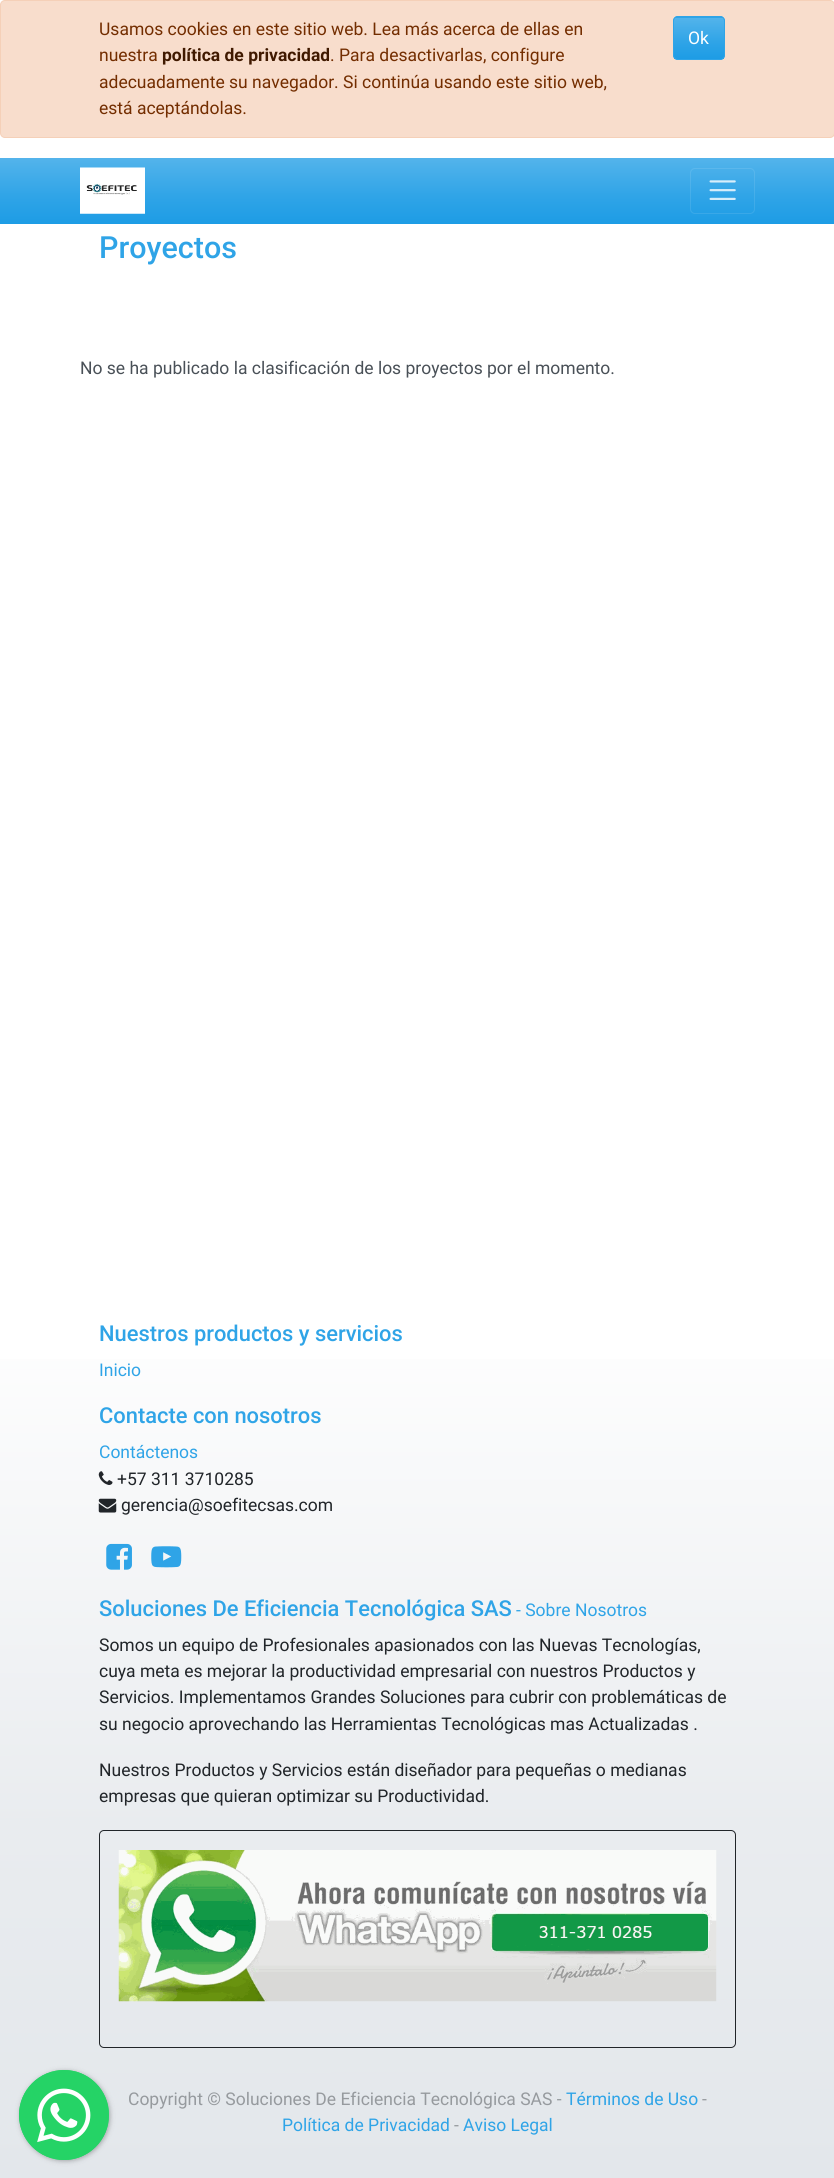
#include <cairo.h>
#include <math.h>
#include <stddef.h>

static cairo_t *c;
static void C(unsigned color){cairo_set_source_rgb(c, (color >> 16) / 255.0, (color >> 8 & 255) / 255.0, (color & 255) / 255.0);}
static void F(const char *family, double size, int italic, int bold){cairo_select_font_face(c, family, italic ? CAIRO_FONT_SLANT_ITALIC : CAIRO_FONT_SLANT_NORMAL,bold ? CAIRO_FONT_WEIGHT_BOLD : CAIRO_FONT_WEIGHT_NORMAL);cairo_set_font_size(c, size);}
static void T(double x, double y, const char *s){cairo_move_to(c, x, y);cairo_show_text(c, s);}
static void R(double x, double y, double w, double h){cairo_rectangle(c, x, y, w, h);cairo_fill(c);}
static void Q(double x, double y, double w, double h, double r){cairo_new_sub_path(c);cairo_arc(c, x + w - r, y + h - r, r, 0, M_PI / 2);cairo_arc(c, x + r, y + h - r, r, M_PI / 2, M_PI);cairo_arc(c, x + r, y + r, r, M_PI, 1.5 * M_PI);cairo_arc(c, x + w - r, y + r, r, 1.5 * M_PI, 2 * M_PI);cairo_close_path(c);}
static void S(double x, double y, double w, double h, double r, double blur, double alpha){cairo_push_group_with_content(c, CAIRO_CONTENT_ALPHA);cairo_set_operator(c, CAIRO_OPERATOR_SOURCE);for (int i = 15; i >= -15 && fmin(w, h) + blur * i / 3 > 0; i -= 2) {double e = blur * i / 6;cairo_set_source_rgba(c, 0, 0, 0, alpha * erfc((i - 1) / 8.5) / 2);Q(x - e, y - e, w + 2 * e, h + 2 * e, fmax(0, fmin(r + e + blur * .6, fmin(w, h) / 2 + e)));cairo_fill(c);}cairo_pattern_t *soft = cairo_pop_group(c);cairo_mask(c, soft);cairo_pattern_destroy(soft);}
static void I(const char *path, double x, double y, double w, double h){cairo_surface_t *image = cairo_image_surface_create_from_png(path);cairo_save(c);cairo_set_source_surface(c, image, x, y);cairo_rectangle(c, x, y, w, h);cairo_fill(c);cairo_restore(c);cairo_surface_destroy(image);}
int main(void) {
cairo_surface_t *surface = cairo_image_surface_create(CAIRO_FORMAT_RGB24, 834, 2178);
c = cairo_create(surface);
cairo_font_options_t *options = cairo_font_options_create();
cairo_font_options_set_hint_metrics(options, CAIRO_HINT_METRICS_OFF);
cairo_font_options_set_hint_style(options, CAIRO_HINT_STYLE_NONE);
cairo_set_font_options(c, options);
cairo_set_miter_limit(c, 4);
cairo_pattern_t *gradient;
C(0xffffff);
cairo_paint(c);
gradient = cairo_pattern_create_linear(417,1300,418,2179);
cairo_pattern_add_color_stop_rgba(gradient,0,1,1,1,1);
cairo_pattern_add_color_stop_rgba(gradient,.6,0.914,0.925,0.937,1);
cairo_pattern_add_color_stop_rgba(gradient,1,0.89,0.906,0.922,1);
cairo_set_source(c,gradient);
cairo_pattern_destroy(gradient);
R(0,1359,834,819);
C(0x3c3c3c);
S(20,2071,90,90,45,2.5,.4);
C(0x25d366);
cairo_arc(c,64,2115,45,0,2 * M_PI);
cairo_fill(c);
I("1.png",19,2070,90,90);
C(0xf8ddcc);
Q(.5,.5,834,137,4.5);
cairo_fill_preserve(c);
C(0xf5d0b8);
cairo_set_line_width(c,1);
cairo_stroke(c);
F("Roboto",17.5,0,0);
C(0x732d00);
T(99,35,"Usamos cookies en este sitio web. Lea más acerca de ellas en");
T(99,61,"nuestra");
F("Roboto",17.5,0,1);
C(0x401900);
T(162,61,"política de privacidad");
F("Roboto",17.5,0,0);
C(0x732d00);
T(330,61,". Para desactivarlas, configure");
T(99,88,"adecuadamente su navegador. Si continúa usando este sitio web,");
T(99,114,"está aceptándolas.");
C(0x2fa4e7);
Q(673,16,52,44,5);
cairo_fill(c);
gradient = cairo_pattern_create_linear(699,17,699,59);
cairo_pattern_add_color_stop_rgba(gradient,0,0.329,0.706,0.922,1);
cairo_pattern_add_color_stop_rgba(gradient,.6,0.184,0.643,0.906,1);
cairo_pattern_add_color_stop_rgba(gradient,1,0.114,0.612,0.898,1);
cairo_set_source(c,gradient);
cairo_pattern_destroy(gradient);
R(674,18,50,41);
Q(673.5,16.5,51,43,4.5);
C(0x2fa4e7);
cairo_stroke(c);
C(0xffffff);
T(688,44,"Ok");
gradient = cairo_pattern_create_linear(418,157,418,224);
cairo_pattern_add_color_stop_rgba(gradient,0,0.329,0.706,0.922,1);
cairo_pattern_add_color_stop_rgba(gradient,.6,0.184,0.643,0.906,1);
cairo_pattern_add_color_stop_rgba(gradient,1,0.114,0.612,0.898,1);
cairo_set_source(c,gradient);
cairo_pattern_destroy(gradient);
R(0,158,834,66);
I("2.png",80,167,65,47);
Q(690.5,168.5,64,45,4.5);
cairo_set_source_rgba(c,1,1,1,0.1);
cairo_stroke(c);
I("3.png",709,180,27,20);
F("Roboto Medium",30.5,0,0);
C(0x2fa4e7);
T(99,258,"Proyectos");
F("Roboto",17.5,0,0);
C(0x495057);
T(80,374,"No se ha publicado la clasificación de los proyectos por el momento.");
F("Roboto Medium",21.9,0,0);
C(0x2fa4e7);
T(99,1341,"Nuestros productos y servicios");
F("Roboto",17.5,0,0);
T(99,1376,"Inicio");
F("Roboto Medium",21.9,0,0);
T(99,1423,"Contacte con nosotros");
F("Roboto",17.5,0,0);
T(99,1458,"Contáctenos");
I("4.png",98,1471,15,14);
C(0x212529);
T(117,1485,"+57 311 3710285");
I("5.png",98,1498,19,15);
T(121,1511,"gerencia@soefitecsas.com");
I("6.png",106,1543,26,27);
I("7.png",151,1546,31,22);
F("Roboto Medium",21.9,0,0);
C(0x2fa4e7);
T(99,1616,"Soluciones De Eficiencia Tecnológica SAS");
F("Roboto",17.5,0,0);
T(516,1616,"- Sobre Nosotros");
C(0x212529);
T(99,1651,"Somos un equipo de Profesionales apasionados con las Nuevas Tecnologías,");
T(99,1677,"cuya meta es mejorar la productividad empresarial con nuestros Productos y");
T(99,1703,"Servicios. Implementamos Grandes Soluciones para cubrir con problemáticas de");
T(99,1730,"su negocio aprovechando las Herramientas Tecnológicas mas Actualizadas .");
T(99,1776,"Nuestros Productos y Servicios están diseñador para pequeñas o medianas");
T(99,1802,"empresas que quieran optimizar su Productividad.");
Q(99.5,1830.5,636,217,4.5);
cairo_stroke(c);
I("8.png",118,1850,599,152);
C(0x969a9e);
T(128,2105,"Copyright © Soluciones De Eficiencia Tecnológica SAS -");
C(0x2fa4e7);
T(566,2105,"Términos de Uso");
C(0x969a9e);
T(702,2105,"-");
C(0x2fa4e7);
T(282,2131,"Política de Privacidad");
C(0x969a9e);
T(454,2131,"-");
C(0x2fa4e7);
T(463,2131,"Aviso Legal");
cairo_surface_write_to_png(surface, "o.png");
cairo_font_options_destroy(options);
cairo_destroy(c);
cairo_surface_destroy(surface);
return 0;
}
